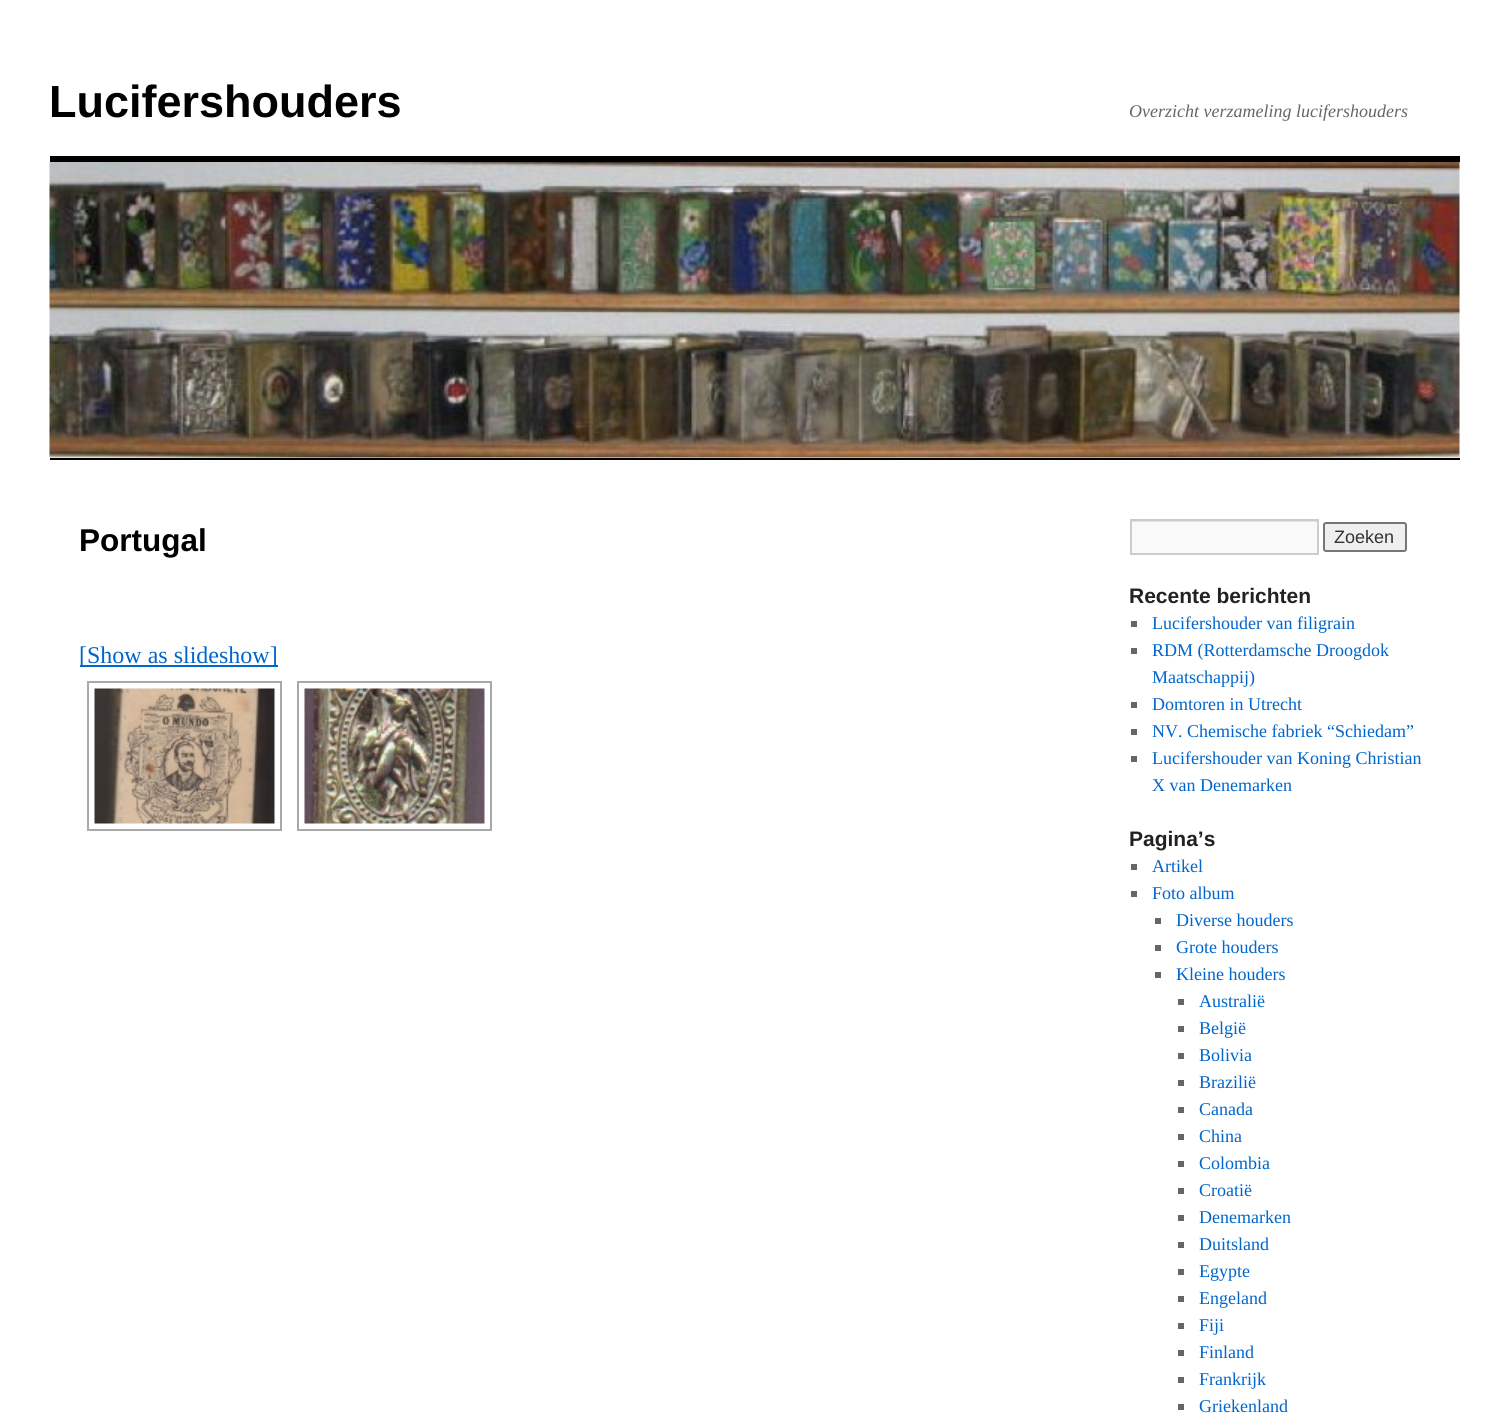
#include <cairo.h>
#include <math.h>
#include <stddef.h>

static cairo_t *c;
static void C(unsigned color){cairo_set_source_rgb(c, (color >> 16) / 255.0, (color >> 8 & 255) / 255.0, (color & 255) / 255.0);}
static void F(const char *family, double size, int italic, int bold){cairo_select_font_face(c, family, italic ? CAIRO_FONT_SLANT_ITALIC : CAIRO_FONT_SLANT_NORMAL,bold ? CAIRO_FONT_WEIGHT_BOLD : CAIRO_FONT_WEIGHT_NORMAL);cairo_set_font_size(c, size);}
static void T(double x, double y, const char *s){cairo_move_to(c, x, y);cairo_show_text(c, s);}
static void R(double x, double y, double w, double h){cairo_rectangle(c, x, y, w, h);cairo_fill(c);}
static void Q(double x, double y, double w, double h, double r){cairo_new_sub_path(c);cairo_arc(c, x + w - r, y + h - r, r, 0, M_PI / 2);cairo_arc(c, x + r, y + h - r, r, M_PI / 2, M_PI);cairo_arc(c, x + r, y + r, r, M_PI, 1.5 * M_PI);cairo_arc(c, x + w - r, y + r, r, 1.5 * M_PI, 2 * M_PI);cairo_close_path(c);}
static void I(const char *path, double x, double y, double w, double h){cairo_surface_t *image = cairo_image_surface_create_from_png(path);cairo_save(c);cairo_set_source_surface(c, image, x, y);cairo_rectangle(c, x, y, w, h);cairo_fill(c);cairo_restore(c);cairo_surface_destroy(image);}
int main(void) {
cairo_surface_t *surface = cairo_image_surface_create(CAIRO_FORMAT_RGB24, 1507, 1427);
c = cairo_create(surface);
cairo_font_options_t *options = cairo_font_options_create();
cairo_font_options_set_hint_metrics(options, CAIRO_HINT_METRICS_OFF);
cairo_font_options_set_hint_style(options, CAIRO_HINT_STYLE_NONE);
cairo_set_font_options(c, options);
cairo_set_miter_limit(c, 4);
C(0xffffff);
cairo_paint(c);
F("Liberation Sans",45,0,1);
C(0x000000);
T(49,117,"Lucifershouders");
F("Liberation Serif",18,1,0);
C(0x666666);
T(1129,117,"Overzicht verzameling lucifershouders");
C(0x000000);
R(50,156,1410,6);
R(50,458,1410,2);
I("1.png",49,162,1411,296);
F("Liberation Sans",31.5,0,1);
T(79,551,"Portugal");
C(0x0066cc);
R(80,665,198,2);
F("Liberation Serif",24,0,0);
T(79,663,"[Show as slideshow]");
cairo_rectangle(c,88,682,193,148);
C(0xa9a9a9);
cairo_stroke(c);
I("2.png",94,688,181,136);
cairo_rectangle(c,298,682,193,148);
cairo_stroke(c);
I("3.png",304,688,181,136);
C(0xf9f9f9);
R(1132,522,185,31);
cairo_save(c);
cairo_rectangle(c,1131,521,186,33);
cairo_clip(c);
C(0xe0e0e0);
cairo_set_fill_rule(c,CAIRO_FILL_RULE_EVEN_ODD);
cairo_new_path(c);
cairo_move_to(c,982,372);
cairo_line_to(c,1466,372);
cairo_line_to(c,1466,702);
cairo_line_to(c,982,702);
cairo_close_path(c);
cairo_move_to(c,1132,522);
cairo_line_to(c,1318,522);
cairo_line_to(c,1318,555);
cairo_line_to(c,1132,555);
cairo_close_path(c);
cairo_fill(c);
cairo_restore(c);
cairo_rectangle(c,1131,520,187,34);
C(0xcccccc);
cairo_stroke(c);
C(0xefefef);
Q(1324,523,82,28,2);
cairo_fill_preserve(c);
C(0x767676);
cairo_stroke(c);
F("Liberation Sans",18,0,0);
C(0x333333);
T(1334,543,"Zoeken");
F("Liberation Sans",21,0,1);
C(0x222222);
T(1129,603,"Recente berichten");
C(0x666666);
R(1131,621,6,6);
F("Liberation Serif",18,0,0);
C(0x0066cc);
T(1152,629,"Lucifershouder van filigrain");
C(0x666666);
R(1131,648,6,6);
C(0x0066cc);
T(1152,656,"RDM (Rotterdamsche Droogdok");
T(1152,683,"Maatschappij)");
C(0x666666);
R(1131,702,6,6);
C(0x0066cc);
T(1152,710,"Domtoren in Utrecht");
C(0x666666);
R(1131,729,6,6);
C(0x0066cc);
T(1152,737,"NV. Chemische fabriek “Schiedam”");
C(0x666666);
R(1131,756,6,6);
C(0x0066cc);
T(1152,764,"Lucifershouder van Koning Christian");
T(1152,791,"X van Denemarken");
F("Liberation Sans",21,0,1);
C(0x222222);
T(1129,846,"Pagina’s");
C(0x666666);
R(1131,864,6,6);
F("Liberation Serif",18,0,0);
C(0x0066cc);
T(1152,872,"Artikel");
C(0x666666);
R(1131,891,6,6);
C(0x0066cc);
T(1152,899,"Foto album");
C(0x666666);
R(1155,918,6,6);
C(0x0066cc);
T(1176,926,"Diverse houders");
C(0x666666);
R(1155,945,6,6);
C(0x0066cc);
T(1176,953,"Grote houders");
C(0x666666);
R(1155,972,6,6);
C(0x0066cc);
T(1176,980,"Kleine houders");
C(0x666666);
R(1178,999,6,6);
C(0x0066cc);
T(1199,1007,"Australië");
C(0x666666);
R(1178,1026,6,6);
C(0x0066cc);
T(1199,1034,"België");
C(0x666666);
R(1178,1053,6,6);
C(0x0066cc);
T(1199,1061,"Bolivia");
C(0x666666);
R(1178,1080,6,6);
C(0x0066cc);
T(1199,1088,"Brazilië");
C(0x666666);
R(1178,1107,6,6);
C(0x0066cc);
T(1199,1115,"Canada");
C(0x666666);
R(1178,1134,6,6);
C(0x0066cc);
T(1199,1142,"China");
C(0x666666);
R(1178,1161,6,6);
C(0x0066cc);
T(1199,1169,"Colombia");
C(0x666666);
R(1178,1188,6,6);
C(0x0066cc);
T(1199,1196,"Croatië");
C(0x666666);
R(1178,1215,6,6);
C(0x0066cc);
T(1199,1223,"Denemarken");
C(0x666666);
R(1178,1242,6,6);
C(0x0066cc);
T(1199,1250,"Duitsland");
C(0x666666);
R(1178,1269,6,6);
C(0x0066cc);
T(1199,1277,"Egypte");
C(0x666666);
R(1178,1296,6,6);
C(0x0066cc);
T(1199,1304,"Engeland");
C(0x666666);
R(1178,1323,6,6);
C(0x0066cc);
T(1199,1331,"Fiji");
C(0x666666);
R(1178,1350,6,6);
C(0x0066cc);
T(1199,1358,"Finland");
C(0x666666);
R(1178,1377,6,6);
C(0x0066cc);
T(1199,1385,"Frankrijk");
C(0x666666);
R(1178,1404,6,6);
C(0x0066cc);
T(1199,1412,"Griekenland");
cairo_surface_write_to_png(surface, "o.png");
cairo_font_options_destroy(options);
cairo_destroy(c);
cairo_surface_destroy(surface);
return 0;
}
